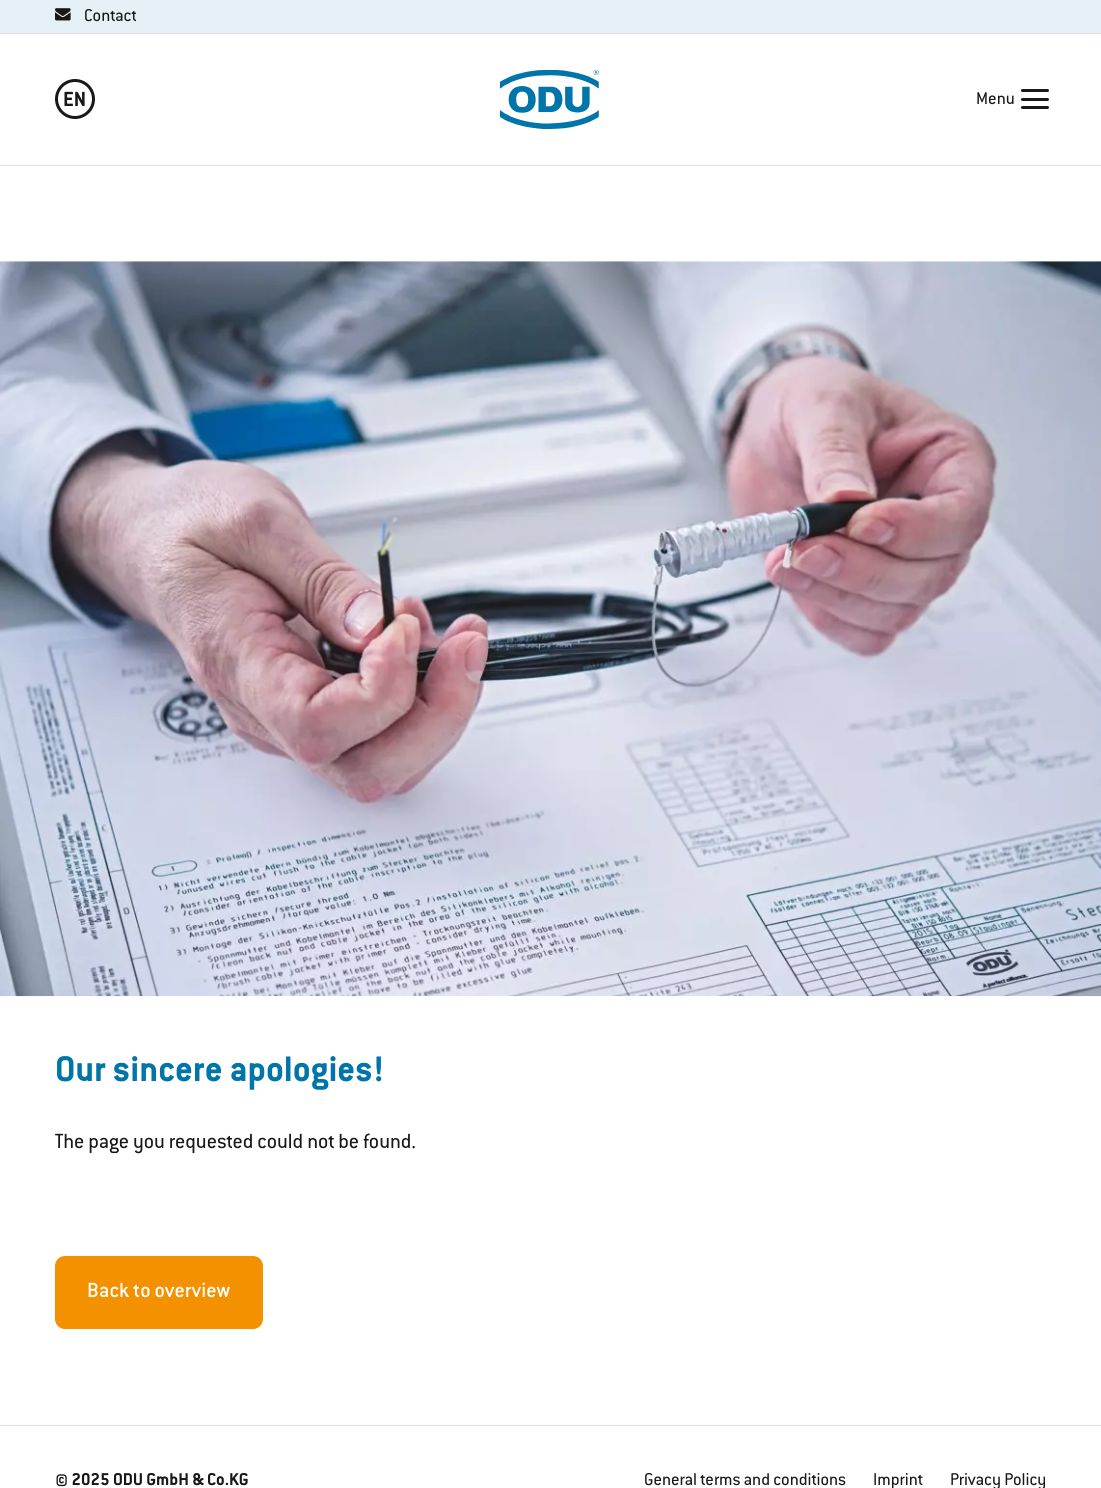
#include <cairo.h>
#include <math.h>
#include <stddef.h>

static cairo_t *c;
static void C(unsigned color){cairo_set_source_rgb(c, (color >> 16) / 255.0, (color >> 8 & 255) / 255.0, (color & 255) / 255.0);}
static void F(const char *family, double size, int italic, int bold){cairo_select_font_face(c, family, italic ? CAIRO_FONT_SLANT_ITALIC : CAIRO_FONT_SLANT_NORMAL,bold ? CAIRO_FONT_WEIGHT_BOLD : CAIRO_FONT_WEIGHT_NORMAL);cairo_set_font_size(c, size);}
static void T(double x, double y, const char *s){cairo_move_to(c, x, y);cairo_show_text(c, s);}
static void R(double x, double y, double w, double h){cairo_rectangle(c, x, y, w, h);cairo_fill(c);}
static void Q(double x, double y, double w, double h, double r){cairo_new_sub_path(c);cairo_arc(c, x + w - r, y + h - r, r, 0, M_PI / 2);cairo_arc(c, x + r, y + h - r, r, M_PI / 2, M_PI);cairo_arc(c, x + r, y + r, r, M_PI, 1.5 * M_PI);cairo_arc(c, x + w - r, y + r, r, 1.5 * M_PI, 2 * M_PI);cairo_close_path(c);}
static void I(const char *path, double x, double y, double w, double h){cairo_surface_t *image = cairo_image_surface_create_from_png(path);cairo_save(c);cairo_set_source_surface(c, image, x, y);cairo_rectangle(c, x, y, w, h);cairo_fill(c);cairo_restore(c);cairo_surface_destroy(image);}
int main(void) {
cairo_surface_t *surface = cairo_image_surface_create(CAIRO_FORMAT_RGB24, 1101, 1488);
c = cairo_create(surface);
cairo_font_options_t *options = cairo_font_options_create();
cairo_font_options_set_hint_metrics(options, CAIRO_HINT_METRICS_OFF);
cairo_font_options_set_hint_style(options, CAIRO_HINT_STYLE_NONE);
cairo_set_font_options(c, options);
cairo_set_miter_limit(c, 4);
C(0xffffff);
cairo_paint(c);
C(0xe6f1f7);
R(0,0,1101,33);
I("1.png",55,8,16,13);
F("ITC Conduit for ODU",18.75,0,0);
C(0x181818);
T(84,21,"Contact");
cairo_rectangle(c,-.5,33.5,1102,132);
C(0xe1e1e1);
cairo_set_line_width(c,1);
cairo_stroke(c);
cairo_arc(c,75,99,18.5,0,2 * M_PI);
C(0x181818);
cairo_set_line_width(c,3);
cairo_stroke(c);
F("ITC Conduit for ODU",22.5,0,1);
T(63,106,"EN");
I("2.png",500,69,99,60);
F("ITC Conduit for ODU",18.75,0,0);
T(976,104,"Menu");
Q(1021,89,28,3,1.5);
cairo_fill(c);
Q(1021,98,28,3,1.5);
cairo_fill(c);
Q(1021,106,28,3,1.5);
cairo_fill(c);
I("3.png",0,261,1101,736);
F("ITC Conduit for ODU",38.9,0,1);
C(0x0075aa);
T(55,1081,"Our sincere apologies!");
F("ITC Conduit for ODU",22.5,0,0);
C(0x181818);
T(55,1148,"The page you requested could not be found.");
C(0xf39100);
Q(56.5,1257.5,205,70,8.5);
cairo_fill_preserve(c);
cairo_stroke(c);
F("ITC Conduit for ODU Medium",22.5,0,0);
C(0xffffff);
T(87,1297,"Back to overview");
C(0xe1e1e1);
R(0,1425,1101,1);
F("ITC Conduit for ODU",18.75,0,1);
C(0x181818);
T(55,1485,"© 2025 ODU GmbH & Co.KG");
F("ITC Conduit for ODU",18.75,0,0);
T(644,1485,"General terms and conditions");
T(873,1485,"Imprint");
T(950,1485,"Privacy Policy");
cairo_surface_write_to_png(surface, "o.png");
cairo_font_options_destroy(options);
cairo_destroy(c);
cairo_surface_destroy(surface);
return 0;
}
